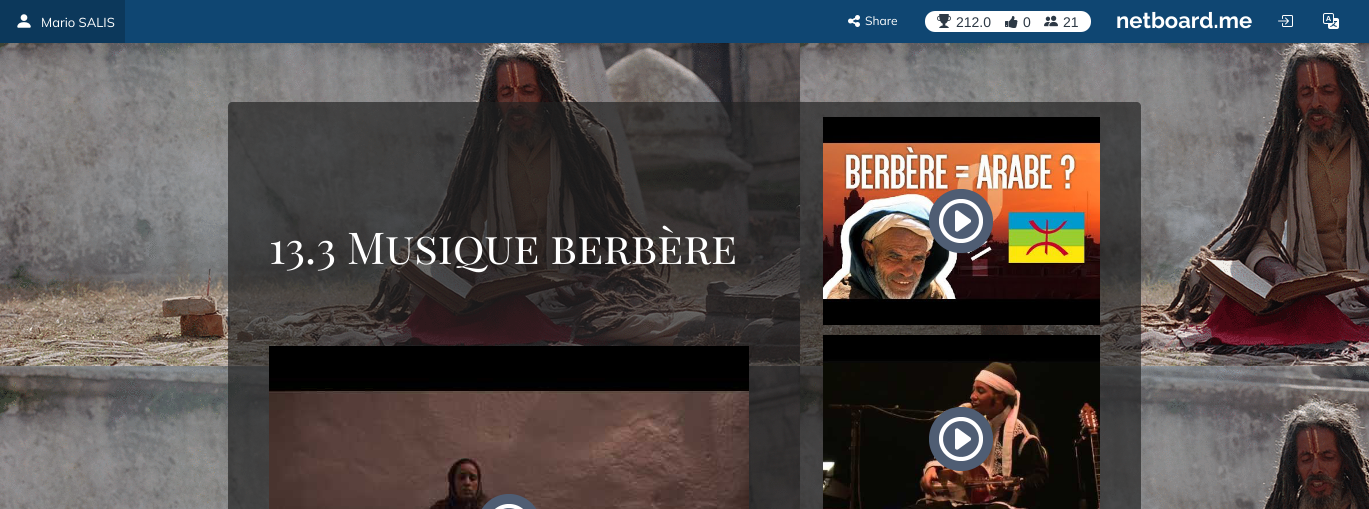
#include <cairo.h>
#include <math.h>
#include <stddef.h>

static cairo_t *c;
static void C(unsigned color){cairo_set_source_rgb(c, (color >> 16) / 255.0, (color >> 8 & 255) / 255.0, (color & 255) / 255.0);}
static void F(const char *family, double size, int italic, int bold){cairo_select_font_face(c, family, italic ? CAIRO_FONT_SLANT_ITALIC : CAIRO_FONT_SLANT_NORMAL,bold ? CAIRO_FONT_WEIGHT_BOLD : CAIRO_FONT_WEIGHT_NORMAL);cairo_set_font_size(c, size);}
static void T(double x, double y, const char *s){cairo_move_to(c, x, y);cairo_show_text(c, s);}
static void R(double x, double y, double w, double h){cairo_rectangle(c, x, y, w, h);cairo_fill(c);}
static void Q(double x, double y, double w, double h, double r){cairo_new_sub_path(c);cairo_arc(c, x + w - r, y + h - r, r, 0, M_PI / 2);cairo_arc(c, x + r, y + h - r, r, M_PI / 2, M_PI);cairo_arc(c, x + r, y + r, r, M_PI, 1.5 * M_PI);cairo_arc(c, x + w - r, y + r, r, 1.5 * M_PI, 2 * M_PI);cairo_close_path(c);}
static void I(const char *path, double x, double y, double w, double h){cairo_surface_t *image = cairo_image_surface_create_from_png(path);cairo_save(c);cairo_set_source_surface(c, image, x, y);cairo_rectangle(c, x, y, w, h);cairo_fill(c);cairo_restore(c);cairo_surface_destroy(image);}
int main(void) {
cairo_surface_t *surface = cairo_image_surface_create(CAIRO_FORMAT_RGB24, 1369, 509);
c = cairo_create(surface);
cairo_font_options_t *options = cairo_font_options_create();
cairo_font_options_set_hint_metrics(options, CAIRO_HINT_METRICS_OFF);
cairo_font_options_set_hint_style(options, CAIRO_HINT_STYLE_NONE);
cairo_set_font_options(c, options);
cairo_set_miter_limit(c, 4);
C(0xffffff);
cairo_paint(c);
C(0x0f4672);
R(125,0,1244,43);
C(0x0c385b);
R(0,0,125,43);
I("1.png",17,14,14,14);
F("Mulish",13,0,0);
C(0xffffff);
T(41,27,"Mario SALIS");
I("2.png",848,15,12,12);
F("Mulish",12,0,0);
T(865,25,"Share");
Q(925,11,166,21,10);
cairo_fill(c);
I("3.png",937,14,14,14);
F("Liberation Sans",14,0,0);
C(0x2d3945);
T(956,27,"212.0");
I("4.png",1005,16,13,12);
T(1023,27,"0");
I("5.png",1044,15,14,12);
T(1063,27,"21");
F("Raleway",22,0,1);
C(0xffffff);
T(1116,28,"netboard.me");
I("6.png",1278,15,15,12);
I("7.png",1323,13,16,16);
I("8.png",0,43,1369,466);
cairo_set_source_rgba(c,0.129,0.129,0.129,0.67);
cairo_new_path(c);
cairo_move_to(c,232,102);
cairo_line_to(c,1137,102);
cairo_curve_to(c,1139,102,1141,104,1141,106);
cairo_line_to(c,1141,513);
cairo_line_to(c,228,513);
cairo_line_to(c,228,106);
cairo_curve_to(c,228,104,230,102,232,102);
cairo_close_path(c);
cairo_fill(c);
F("Playfair Display SC",44,0,0);
C(0xffffff);
T(269,264,"13.3 Musique berbère");
I("9.png",269,346,480,163);
I("10.png",823,117,277,208);
I("11.png",823,335,277,174);
cairo_surface_write_to_png(surface, "o.png");
cairo_font_options_destroy(options);
cairo_destroy(c);
cairo_surface_destroy(surface);
return 0;
}
